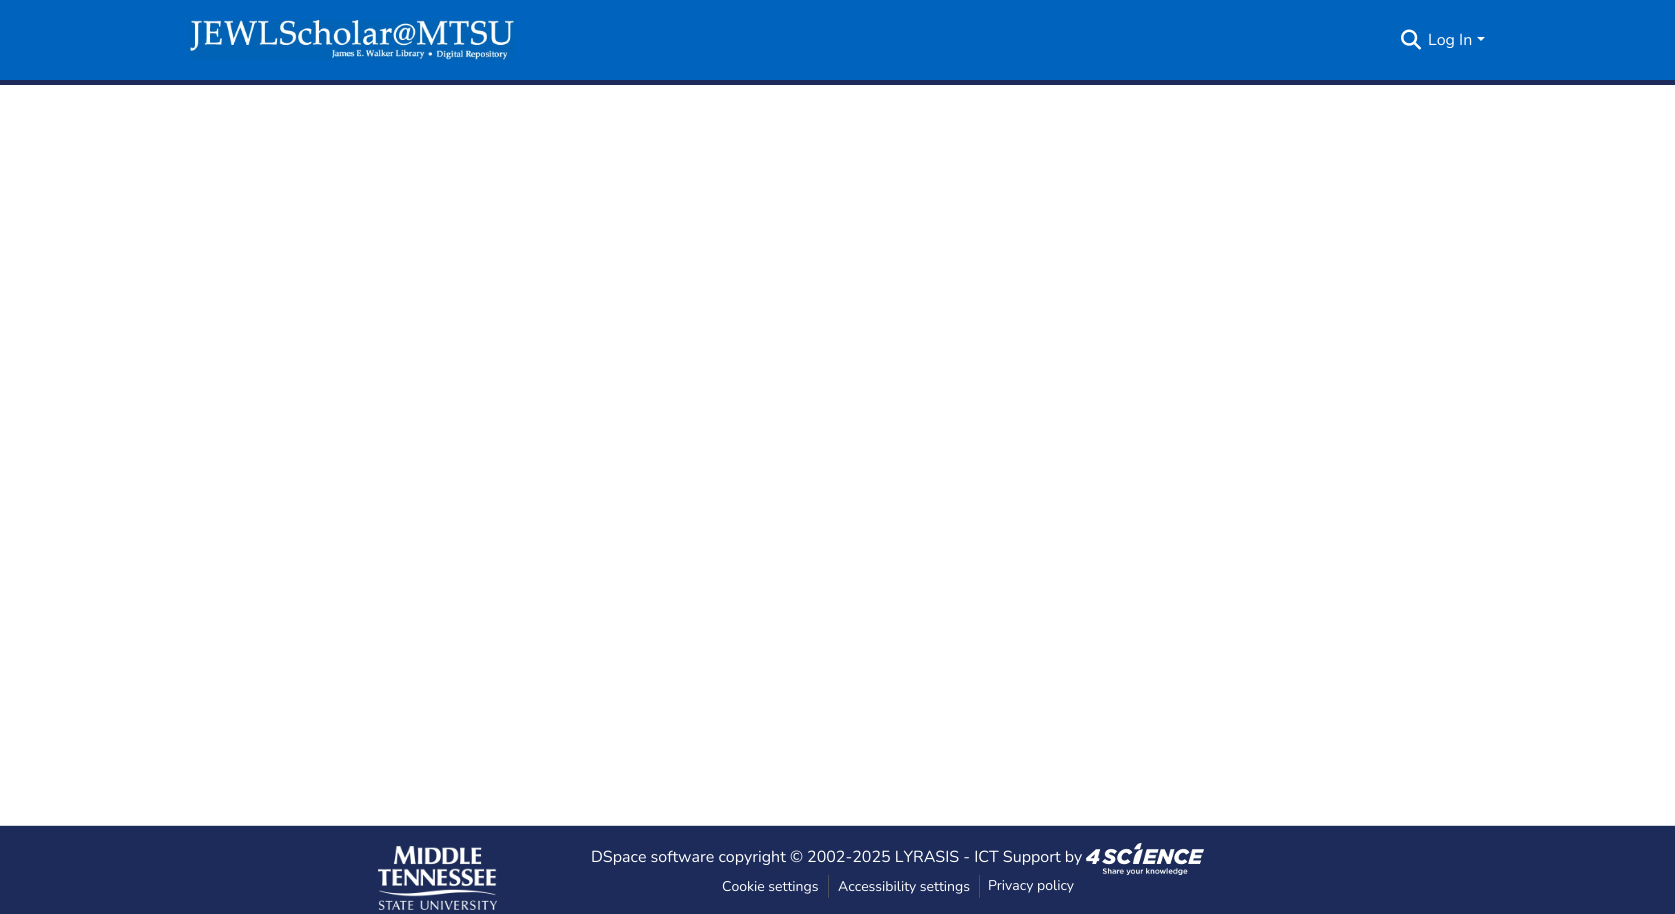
#include <cairo.h>
#include <math.h>
#include <stddef.h>

static cairo_t *c;
static void C(unsigned color){cairo_set_source_rgb(c, (color >> 16) / 255.0, (color >> 8 & 255) / 255.0, (color & 255) / 255.0);}
static void F(const char *family, double size, int italic, int bold){cairo_select_font_face(c, family, italic ? CAIRO_FONT_SLANT_ITALIC : CAIRO_FONT_SLANT_NORMAL,bold ? CAIRO_FONT_WEIGHT_BOLD : CAIRO_FONT_WEIGHT_NORMAL);cairo_set_font_size(c, size);}
static void T(double x, double y, const char *s){cairo_move_to(c, x, y);cairo_show_text(c, s);}
static void R(double x, double y, double w, double h){cairo_rectangle(c, x, y, w, h);cairo_fill(c);}
static void I(const char *path, double x, double y, double w, double h){cairo_surface_t *image = cairo_image_surface_create_from_png(path);cairo_save(c);cairo_set_source_surface(c, image, x, y);cairo_rectangle(c, x, y, w, h);cairo_fill(c);cairo_restore(c);cairo_surface_destroy(image);}
int main(void) {
cairo_surface_t *surface = cairo_image_surface_create(CAIRO_FORMAT_RGB24, 1675, 914);
c = cairo_create(surface);
cairo_font_options_t *options = cairo_font_options_create();
cairo_font_options_set_hint_metrics(options, CAIRO_HINT_METRICS_OFF);
cairo_font_options_set_hint_style(options, CAIRO_HINT_STYLE_NONE);
cairo_set_font_options(c, options);
cairo_set_miter_limit(c, 4);
C(0xffffff);
cairo_paint(c);
C(0x1c2b59);
R(0,80,1675,5);
C(0x0063be);
R(0,0,1675,80);
I("1.png",190,20,324,40);
I("2.png",1401,29,20,21);
F("Nunito",16,0,0);
C(0xffffff);
T(1428,45,"Log In");
cairo_new_path(c);
cairo_move_to(c,1477,37);
cairo_line_to(c,1485,37);
cairo_line_to(c,1481,41);
cairo_close_path(c);
cairo_fill(c);
C(0x1c2b59);
R(0,826,1675,88);
C(0xced4da);
R(0,825,1675,1);
I("3.png",378,846,119,64);
C(0xffffff);
T(591,862,"DSpace software copyright © 2002-2025 LYRASIS - ICT Support by");
I("4.png",1086,843,118,32);
F("Nunito",14,0,0);
T(722,891,"Cookie settings");
C(0x495057);
R(828,875,1,23);
C(0xffffff);
T(838,891,"Accessibility settings");
C(0x495057);
R(979,875,1,23);
C(0xffffff);
T(988,890,"Privacy policy");
cairo_surface_write_to_png(surface, "o.png");
cairo_font_options_destroy(options);
cairo_destroy(c);
cairo_surface_destroy(surface);
return 0;
}
